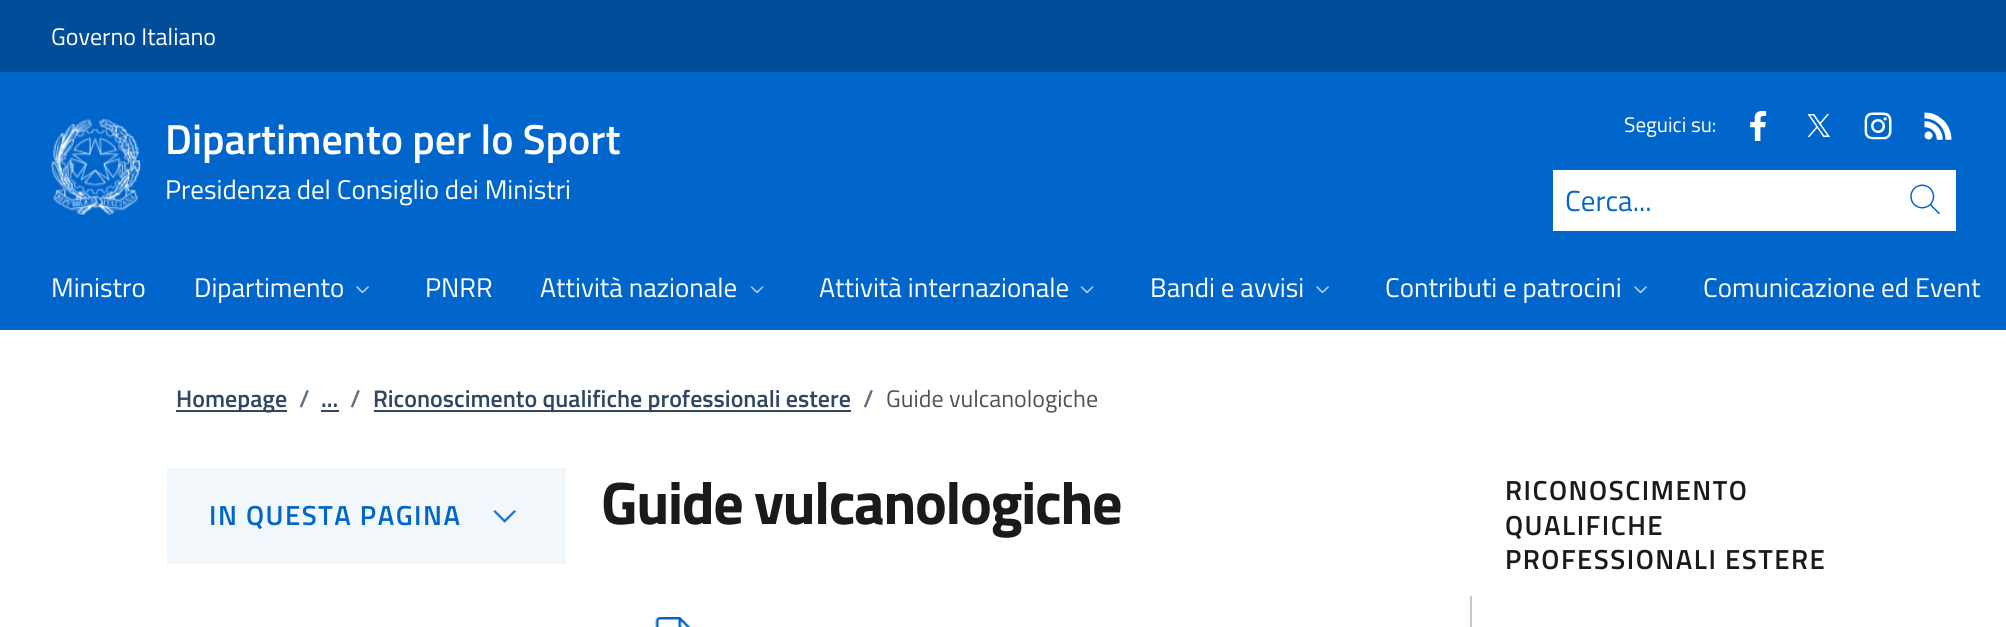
#include <cairo.h>
#include <math.h>
#include <stddef.h>

static cairo_t *c;
static void C(unsigned color){cairo_set_source_rgb(c, (color >> 16) / 255.0, (color >> 8 & 255) / 255.0, (color & 255) / 255.0);}
static void F(const char *family, double size, int italic, int bold){cairo_select_font_face(c, family, italic ? CAIRO_FONT_SLANT_ITALIC : CAIRO_FONT_SLANT_NORMAL,bold ? CAIRO_FONT_WEIGHT_BOLD : CAIRO_FONT_WEIGHT_NORMAL);cairo_set_font_size(c, size);}
static void T(double x, double y, const char *s){cairo_move_to(c, x, y);cairo_show_text(c, s);}
static void L(double x, double y, const char *s, double letter, double word){cairo_move_to(c, x, y);while (*s) {char ch[5] = {0};int n = 0;do ch[n++] = *s++; while ((*s & 0xC0) == 0x80);cairo_show_text(c, ch);cairo_rel_move_to(c, letter + word * (*ch == ' '), 0);}}
static void R(double x, double y, double w, double h){cairo_rectangle(c, x, y, w, h);cairo_fill(c);}
static void I(const char *path, double x, double y, double w, double h){cairo_surface_t *image = cairo_image_surface_create_from_png(path);cairo_save(c);cairo_set_source_surface(c, image, x, y);cairo_rectangle(c, x, y, w, h);cairo_fill(c);cairo_restore(c);cairo_surface_destroy(image);}
int main(void) {
cairo_surface_t *surface = cairo_image_surface_create(CAIRO_FORMAT_RGB24, 2006, 627);
c = cairo_create(surface);
cairo_font_options_t *options = cairo_font_options_create();
cairo_font_options_set_hint_metrics(options, CAIRO_HINT_METRICS_OFF);
cairo_font_options_set_hint_style(options, CAIRO_HINT_STYLE_NONE);
cairo_set_font_options(c, options);
cairo_set_miter_limit(c, 4);
C(0xffffff);
cairo_paint(c);
C(0x004d99);
R(0,0,2006,72);
F("Titillium Web",24,0,0);
C(0xffffff);
T(51,45,"Governo Italiano");
C(0x0066cc);
R(0,72,2006,258);
I("1.png",51,118,90,97);
F("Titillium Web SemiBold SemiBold",42,0,0);
C(0xffffff);
T(165,154,"Dipartimento per lo Sport");
F("Titillium Web",27,0,0);
T(165,199,"Presidenza del Consiglio dei Ministri");
F("Titillium Web",21,0,0);
T(1624,132,"Seguici su:");
I("2.png",1750,111,17,30);
I("3.png",1807,114,23,23);
I("4.png",1864,112,28,28);
I("5.png",1924,112,28,28);
R(1553,170,403,61);
F("Titillium Web",29,0,0);
C(0x0066cc);
T(1565,211,"Cerca...");
I("6.png",1910,184,30,31);
F("Titillium Web",27,0,0);
C(0xffffff);
T(51,297,"Ministro");
T(194,297,"Dipartimento");
I("7.png",356,286,14,8);
T(425,297,"PNRR");
T(540,297,"Attività nazionale");
I("8.png",750,286,14,8);
T(819,297,"Attività internazionale");
I("8.png",1080,286,14,8);
T(1150,297,"Bandi e avvisi");
I("7.png",1316,286,14,8);
T(1385,297,"Contributi e patrocini");
I("7.png",1634,286,14,8);
T(1703,297,"Comunicazione ed Event");
C(0x30475f);
R(176,410,111,2);
F("Titillium Web SemiBold SemiBold",24,0,0);
T(176,407,"Homepage");
C(0x5d7083);
T(299,407,"/");
C(0x30475f);
T(321,407,"...");
R(321,410,18,2);
C(0x5d7083);
T(350,407,"/");
C(0x30475f);
R(374,410,477,2);
T(373,407,"Riconoscimento qualifiche professionali estere");
C(0x5d7083);
T(863,407,"/");
F("Titillium Web",24,0,0);
C(0x525252);
T(886,407,"Guide vulcanologiche");
C(0xf2f7fc);
R(167,468,399,96);
F("Titillium Web SemiBold SemiBold",27.6,0,0);
C(0x0066cc);
L(209,525,"IN QUESTA PAGINA",1.5,0);
I("9.png",493,510,24,13);
F("Titillium Web",60,0,1);
C(0x1a1a1a);
L(601,524,"Guide vulcanologiche",-1.5,0);
I("10.png",655,617,36,10);
F("Titillium Web SemiBold SemiBold",27.6,0,0);
L(1505,500,"RICONOSCIMENTO",1.5,0);
L(1505,535,"QUALIFICHE",1.5,0);
L(1505,569,"PROFESSIONALI ESTERE",1.5,0);
C(0xc5c7c9);
R(1470,596,2,31);
cairo_surface_write_to_png(surface, "o.png");
cairo_font_options_destroy(options);
cairo_destroy(c);
cairo_surface_destroy(surface);
return 0;
}
